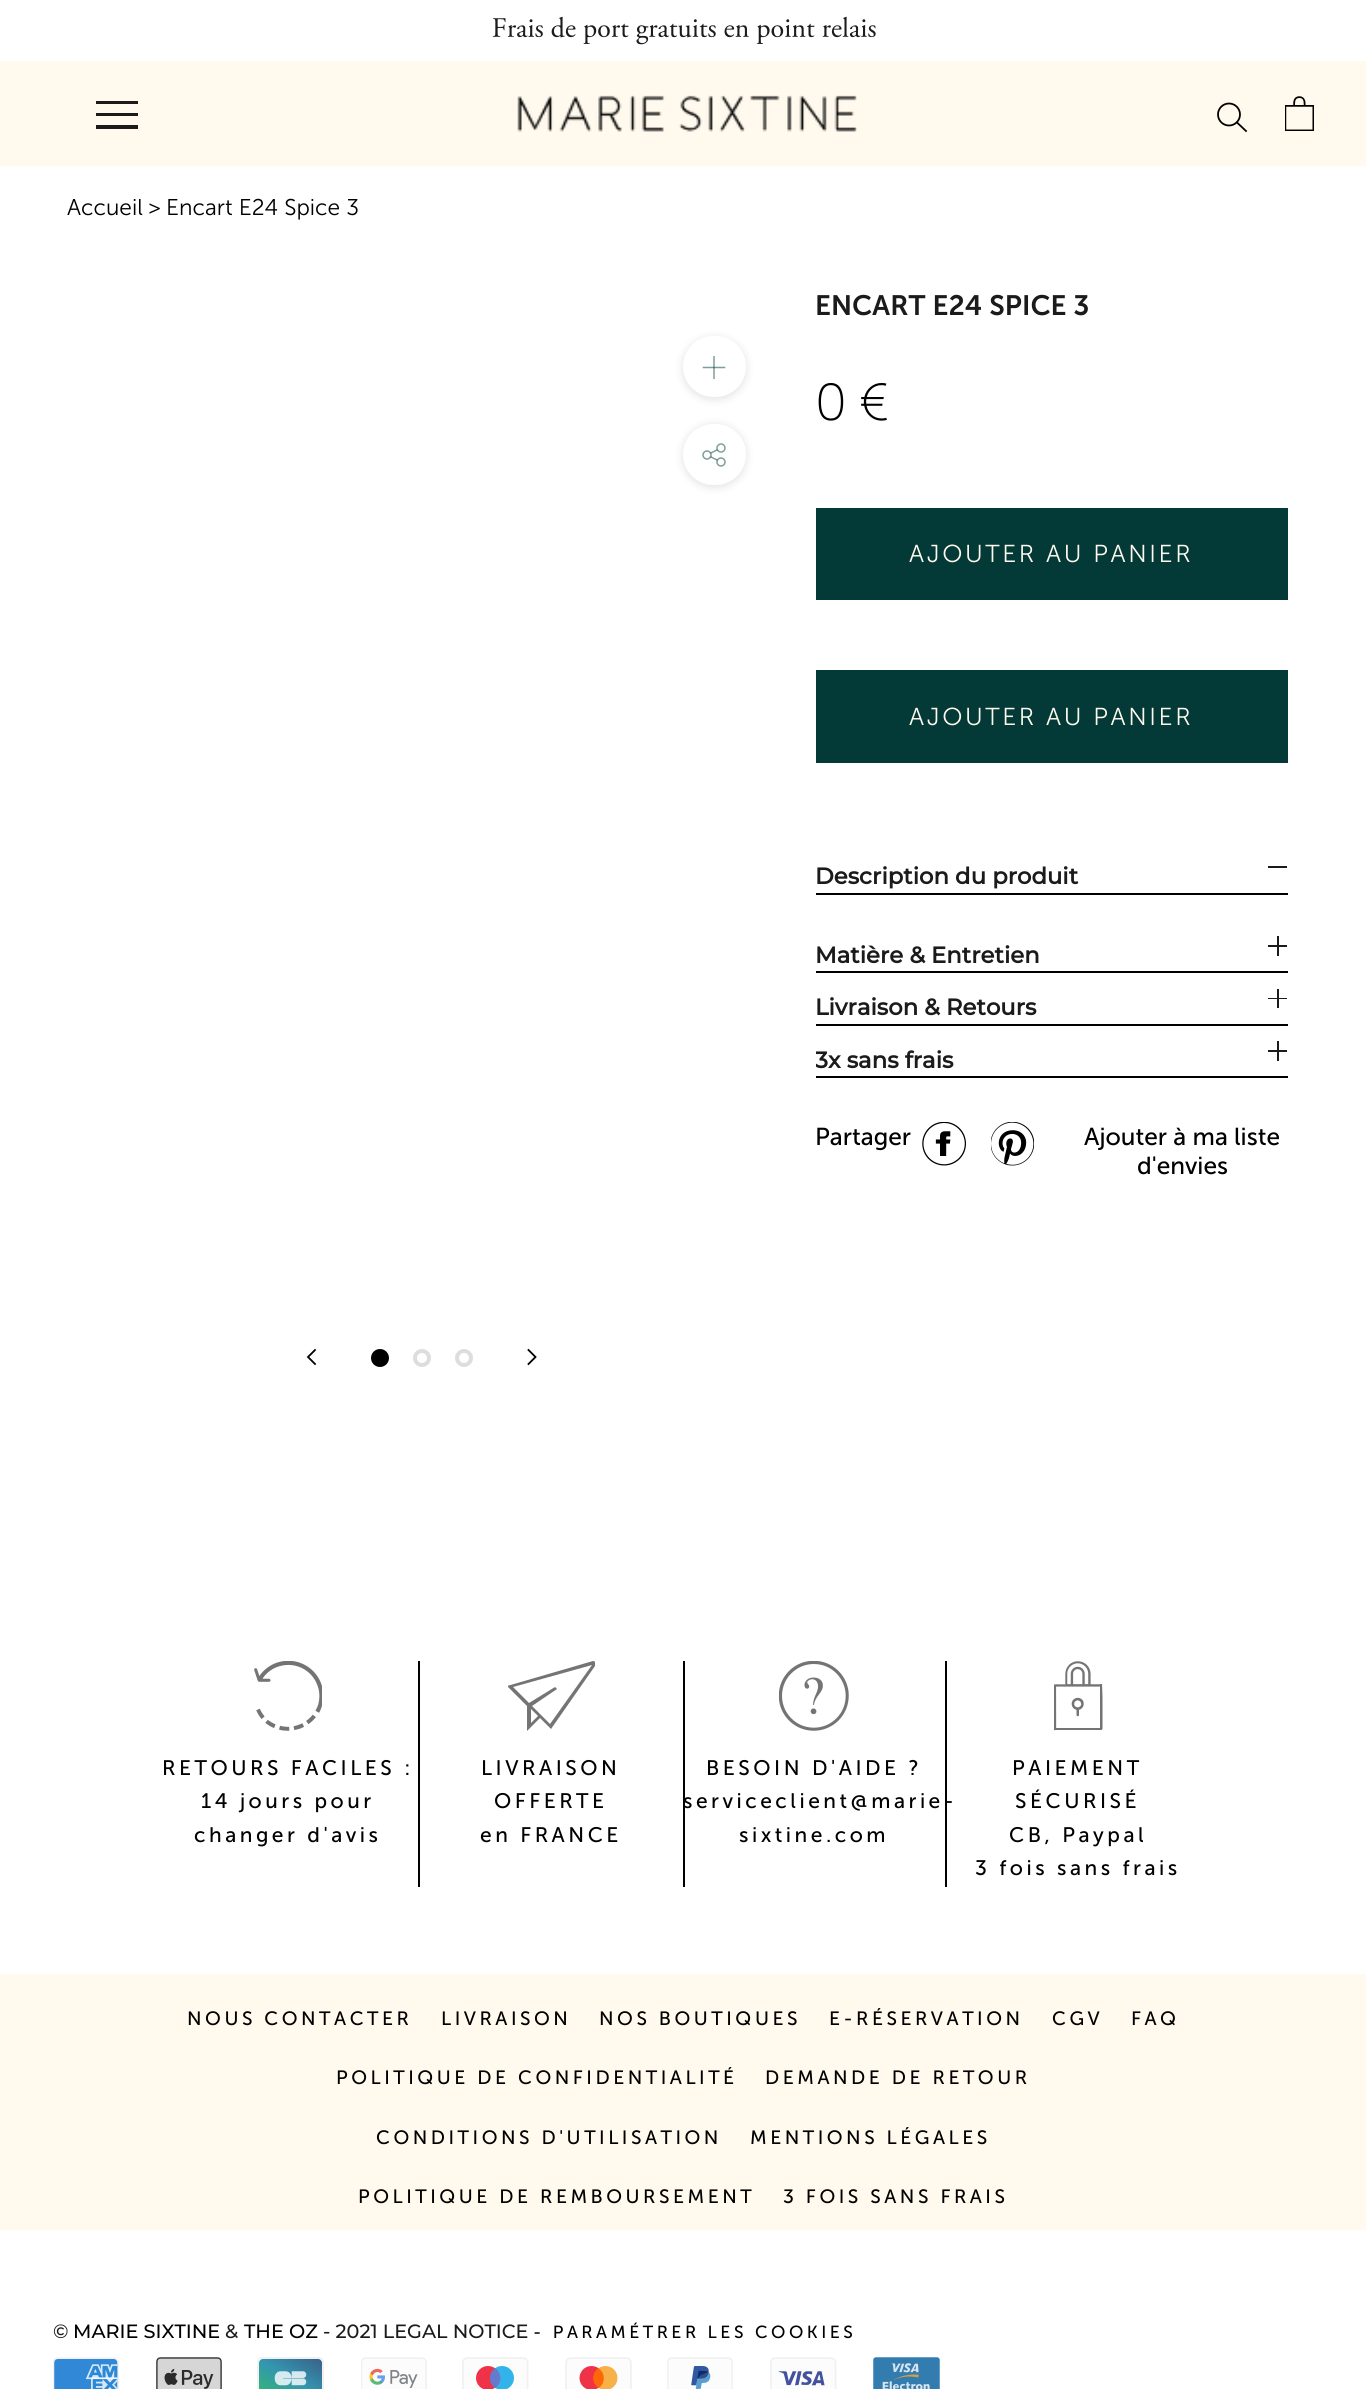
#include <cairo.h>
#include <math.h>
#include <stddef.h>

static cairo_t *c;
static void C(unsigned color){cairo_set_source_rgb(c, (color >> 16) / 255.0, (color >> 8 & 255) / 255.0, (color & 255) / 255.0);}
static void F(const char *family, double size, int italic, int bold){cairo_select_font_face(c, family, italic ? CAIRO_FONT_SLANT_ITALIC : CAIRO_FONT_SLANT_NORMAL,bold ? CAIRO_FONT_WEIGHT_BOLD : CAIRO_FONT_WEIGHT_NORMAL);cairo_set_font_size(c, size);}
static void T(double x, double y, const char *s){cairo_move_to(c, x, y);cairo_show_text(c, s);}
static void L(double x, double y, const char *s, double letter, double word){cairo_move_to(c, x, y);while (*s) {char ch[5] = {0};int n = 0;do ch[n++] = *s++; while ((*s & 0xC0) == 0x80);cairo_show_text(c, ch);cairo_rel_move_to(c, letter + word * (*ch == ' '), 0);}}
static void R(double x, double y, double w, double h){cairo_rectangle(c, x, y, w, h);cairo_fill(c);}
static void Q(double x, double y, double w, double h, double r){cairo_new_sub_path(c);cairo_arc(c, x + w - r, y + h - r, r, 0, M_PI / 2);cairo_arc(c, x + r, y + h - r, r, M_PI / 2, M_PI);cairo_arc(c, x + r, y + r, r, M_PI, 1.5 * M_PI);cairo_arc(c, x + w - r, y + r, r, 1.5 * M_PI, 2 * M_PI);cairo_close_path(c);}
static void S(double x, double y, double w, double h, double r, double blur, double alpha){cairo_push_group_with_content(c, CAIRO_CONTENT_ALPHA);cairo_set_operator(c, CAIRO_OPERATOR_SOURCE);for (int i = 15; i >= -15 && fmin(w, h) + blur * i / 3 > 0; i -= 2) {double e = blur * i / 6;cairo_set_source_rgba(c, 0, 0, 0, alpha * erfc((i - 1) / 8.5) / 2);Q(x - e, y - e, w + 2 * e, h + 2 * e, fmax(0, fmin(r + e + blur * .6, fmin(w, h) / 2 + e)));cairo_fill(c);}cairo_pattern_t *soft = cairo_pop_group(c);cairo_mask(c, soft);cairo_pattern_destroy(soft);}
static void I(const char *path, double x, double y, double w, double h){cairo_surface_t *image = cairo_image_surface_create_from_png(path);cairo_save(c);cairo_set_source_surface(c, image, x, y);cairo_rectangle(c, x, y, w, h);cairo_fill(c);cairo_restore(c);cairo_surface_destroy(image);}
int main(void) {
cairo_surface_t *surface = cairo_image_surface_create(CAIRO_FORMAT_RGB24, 1366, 2389);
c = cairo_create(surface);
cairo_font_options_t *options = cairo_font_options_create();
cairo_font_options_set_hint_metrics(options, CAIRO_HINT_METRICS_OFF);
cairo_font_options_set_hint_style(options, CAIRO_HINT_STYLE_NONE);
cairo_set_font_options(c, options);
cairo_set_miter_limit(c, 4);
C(0xffffff);
cairo_paint(c);
I("1.png",492,16,384,29);
C(0xfffaed);
R(0,61,1366,105);
C(0x1c1b1b);
cairo_new_path(c);
cairo_move_to(c,96,129);
cairo_line_to(c,96,125);
cairo_line_to(c,138,125);
cairo_line_to(c,138,129);
cairo_close_path(c);
cairo_move_to(c,96,113);
cairo_line_to(c,138,113);
cairo_line_to(c,138,116);
cairo_line_to(c,96,116);
cairo_close_path(c);
cairo_move_to(c,96,101);
cairo_line_to(c,138,101);
cairo_line_to(c,138,104);
cairo_line_to(c,96,104);
cairo_close_path(c);
cairo_fill(c);
I("2.png",517,95,340,37);
cairo_new_path(c);
cairo_move_to(c,1246,131);
cairo_line_to(c,1237,122.5);
C(0x000000);
cairo_set_line_width(c,1.8);
cairo_set_line_cap(c,CAIRO_LINE_CAP_SQUARE);
cairo_stroke(c);
cairo_arc(c,1229,114.5,11,0,2 * M_PI);
cairo_set_line_cap(c,CAIRO_LINE_CAP_BUTT);
cairo_stroke(c);
I("3.png",1285,96,29,35);
F("Museo Sans Light",22.75,0,0);
T(67,215,"Accueil");
T(148,215,">");
T(166,215,"Encart E24 Spice 3");
C(0x363636);
S(683,338,63,61,30.5,4.5,.15);
C(0xffffff);
Q(683,336,63,61,30.5);
cairo_fill(c);
C(0xa1b5b4);
R(713,356,2,23);
cairo_new_path(c);
cairo_move_to(c,703.5,367.5);
cairo_line_to(c,724.5,367.5);
cairo_set_source_rgba(c,0.012,0.227,0.216,0.5);
cairo_set_line_width(c,1.5);
cairo_set_line_cap(c,CAIRO_LINE_CAP_SQUARE);
cairo_stroke(c);
C(0x363636);
S(683,425,63,62,31,4.5,.15);
C(0xffffff);
Q(683,424,63,61,30.5);
cairo_fill(c);
I("4.png",702,443,24,24);
cairo_save(c);
Q(683,424,63,61,30.5);
cairo_clip(c);
cairo_new_path(c);
cairo_move_to(c,725.5,481);
cairo_line_to(c,704,502.5);
cairo_move_to(c,725.5,502.5);
cairo_line_to(c,704,481);
cairo_set_line_cap(c,CAIRO_LINE_CAP_BUTT);
cairo_stroke(c);
cairo_restore(c);
cairo_new_path(c);
cairo_move_to(c,315,1364);
cairo_line_to(c,308,1357);
cairo_line_to(c,315,1350);
C(0x000000);
cairo_set_line_width(c,1.8);
cairo_stroke(c);
cairo_arc(c,380,1358,7,0,2 * M_PI);
cairo_fill_preserve(c);
cairo_set_line_width(c,4);
cairo_set_line_cap(c,CAIRO_LINE_CAP_BUTT);
cairo_stroke(c);
cairo_arc(c,422,1358,7,0,2 * M_PI);
C(0xdddddd);
cairo_stroke(c);
cairo_arc(c,464,1358,7,0,2 * M_PI);
cairo_stroke(c);
cairo_new_path(c);
cairo_move_to(c,528.5,1364);
cairo_line_to(c,535.5,1357);
cairo_line_to(c,528.5,1350);
C(0x000000);
cairo_set_line_width(c,1.8);
cairo_set_line_cap(c,CAIRO_LINE_CAP_SQUARE);
cairo_stroke(c);
F("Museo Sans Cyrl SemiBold",28,0,0);
C(0x1c1b1b);
T(815,315,"ENCART E24 SPICE 3");
F("Museo Sans Cyrl ExtraLight",52,0,0);
C(0x000000);
T(815,420,"0 €");
C(0x033a37);
R(816,508,472,92);
F("Museo Sans Light",24.5,0,0);
C(0xfffaed);
L(909,562,"AJOUTER AU PANIER",2.6,0);
C(0x033a37);
R(816,670,472,93);
C(0xfffaed);
L(909,725,"AJOUTER AU PANIER",2.6,0);
C(0x000000);
R(816,893,472,2);
F("Montserrat",22.75,0,1);
C(0x1c1b1b);
T(815,884,"Description du produit");
R(1268,866,19,2);
C(0x000000);
R(816,971,472,2);
C(0x1c1b1b);
T(815,963,"Matière & Entretien");
R(1277,936,2,20);
R(1268,945,19,2);
C(0x000000);
R(816,1024,472,2);
C(0x1c1b1b);
T(815,1015,"Livraison & Retours");
R(1277,989,2,19);
R(1268,998,19,1);
C(0x000000);
R(816,1076,472,2);
cairo_save(c);
cairo_rectangle(c,816,1026,472,52);
cairo_clip(c);
C(0x1c1b1b);
T(815,1068,"3x sans frais");
cairo_restore(c);
C(0x1c1b1b);
R(1277,1041,2,20);
R(1268,1050,19,2);
F("Museo Sans",24.5,0,0);
C(0x000000);
T(815,1145,"Partager");
I("5.png",922,1122,44,44);
I("6.png",991,1122,43,44);
T(1084,1145,"Ajouter à ma liste");
T(1137,1174,"d'envies");
R(418,1661,2,226);
I("7.png",254,1661,68,70);
F("Museo Sans",21,0,0);
L(162,1775,"RETOURS FACILES :",3.5,0);
L(201,1808,"14 jours pour",3.5,0);
L(194,1842,"changer d'avis",3.5,0);
R(683,1661,2,226);
cairo_save(c);
cairo_rectangle(c,508,1661,87,70);
cairo_clip(c);
C(0x747474);
cairo_new_path(c);
cairo_move_to(c,593,1661);
cairo_line_to(c,507,1686);
cairo_line_to(c,527,1706);
cairo_line_to(c,527,1731);
cairo_line_to(c,540,1718);
cairo_line_to(c,551,1729);
cairo_line_to(c,595,1666);
cairo_curve_to(c,596,1665,596,1661,593,1661);
cairo_close_path(c);
cairo_move_to(c,557,1689);
cairo_line_to(c,555,1687);
cairo_line_to(c,529,1703);
cairo_line_to(c,513,1687);
cairo_line_to(c,592,1665);
cairo_line_to(c,550,1724);
cairo_line_to(c,532,1706);
cairo_close_path(c);
cairo_move_to(c,538,1716);
cairo_line_to(c,531,1723);
cairo_line_to(c,531,1709);
cairo_close_path(c);
cairo_fill(c);
cairo_restore(c);
L(481,1775,"LIVRAISON",3.5,0);
L(494,1808,"OFFERTE",3.5,0);
L(480,1842,"en FRANCE",3.5,0);
R(945,1661,2,226);
I("8.png",779,1661,70,70);
L(706,1775,"BESOIN D'AIDE ?",3.5,0);
L(683,1808,"serviceclient@marie-",3.5,0);
L(739,1842,"sixtine.com",3.5,0);
I("9.png",1054,1661,49,70);
L(1012,1775,"PAIEMENT",3.5,0);
L(1015,1808,"SÉCURISÉ",3.5,0);
L(1009,1842,"CB, Paypal",3.5,0);
L(975,1875,"3 fois sans frais",3.5,0);
C(0xfffaed);
R(0,1974,1366,256);
F("Museo Sans",19.25,0,0);
C(0x000000);
L(187,2025,"NOUS CONTACTER",3.5,0);
L(441,2025,"LIVRAISON",3.5,0);
L(599,2025,"NOS BOUTIQUES",3.5,0);
L(829,2025,"E-RÉSERVATION",3.5,0);
L(1052,2025,"CGV",3.5,0);
L(1131,2025,"FAQ",3.5,0);
L(336,2084,"POLITIQUE DE CONFIDENTIALITÉ",3.5,0);
L(765,2084,"DEMANDE DE RETOUR",3.5,0);
L(376,2144,"CONDITIONS D'UTILISATION",3.5,0);
L(750,2144,"MENTIONS LÉGALES",3.5,0);
L(358,2203,"POLITIQUE DE REMBOURSEMENT",3.5,0);
L(783,2203,"3 FOIS SANS FRAIS",3.5,0);
F("Montserrat Medium",19.25,0,0);
C(0x1c1b1b);
T(53,2338,"©");
C(0x000000);
T(73,2338,"MARIE SIXTINE");
C(0x1c1b1b);
T(225,2338,"&");
C(0x000000);
T(244,2338,"THE OZ");
C(0x1c1b1b);
T(323,2338,"- 2021 LEGAL NOTICE");
F("Museo Sans",17.5,0,0);
C(0x000000);
L(533,2338,"- PARAMÉTRER LES COOKIES",3.5,0);
I("10.png",53,2357,66,32);
I("11.png",156,2357,66,32);
I("12.png",257,2357,67,32);
I("13.png",361,2357,66,32);
I("14.png",462,2357,67,32);
I("15.png",565,2357,67,32);
I("16.png",667,2357,66,32);
I("17.png",770,2357,67,32);
I("18.png",873,2357,67,32);
cairo_surface_write_to_png(surface, "o.png");
cairo_font_options_destroy(options);
cairo_destroy(c);
cairo_surface_destroy(surface);
return 0;
}
